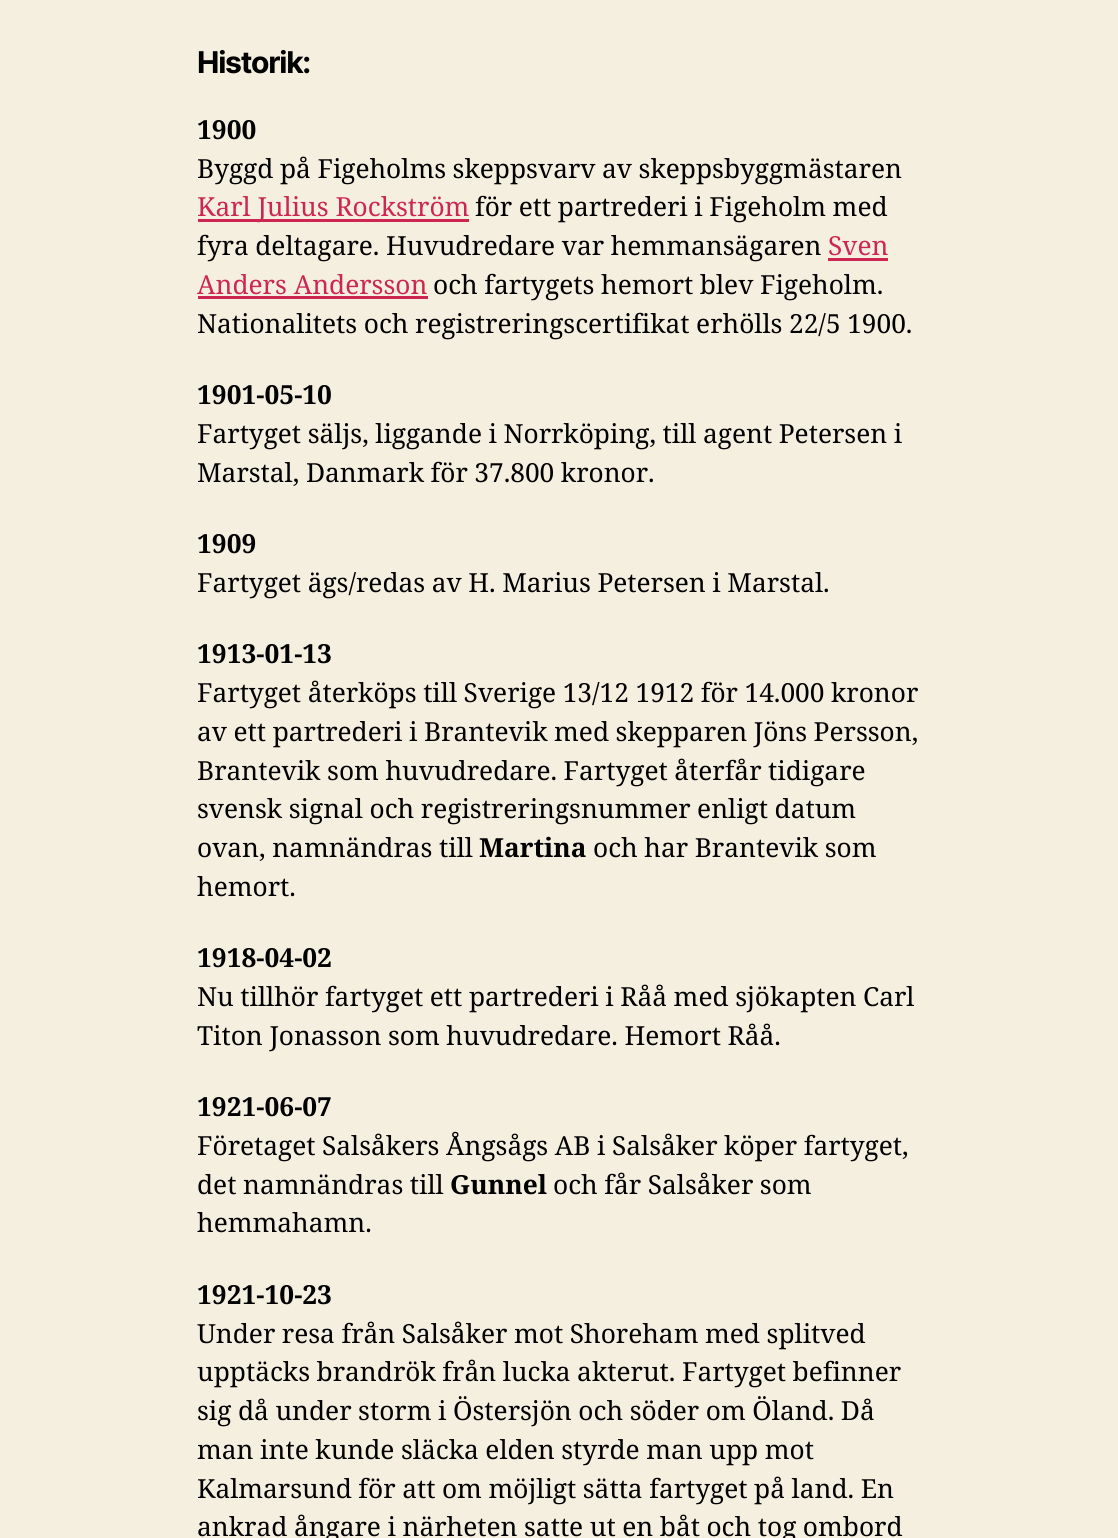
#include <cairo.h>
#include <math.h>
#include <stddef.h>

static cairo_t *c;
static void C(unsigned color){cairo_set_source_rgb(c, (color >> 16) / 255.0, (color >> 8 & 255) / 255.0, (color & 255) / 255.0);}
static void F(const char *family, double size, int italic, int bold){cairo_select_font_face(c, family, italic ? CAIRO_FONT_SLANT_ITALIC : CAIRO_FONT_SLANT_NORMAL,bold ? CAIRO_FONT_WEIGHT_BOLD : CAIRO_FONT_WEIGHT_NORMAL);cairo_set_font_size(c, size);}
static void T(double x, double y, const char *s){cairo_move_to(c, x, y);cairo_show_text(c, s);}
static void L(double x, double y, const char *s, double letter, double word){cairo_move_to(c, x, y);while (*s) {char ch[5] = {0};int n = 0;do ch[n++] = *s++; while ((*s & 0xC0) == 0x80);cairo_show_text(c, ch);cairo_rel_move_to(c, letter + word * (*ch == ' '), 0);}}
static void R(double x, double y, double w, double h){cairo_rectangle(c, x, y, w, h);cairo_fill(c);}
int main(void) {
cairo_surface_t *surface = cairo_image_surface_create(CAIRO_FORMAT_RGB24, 1118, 1538);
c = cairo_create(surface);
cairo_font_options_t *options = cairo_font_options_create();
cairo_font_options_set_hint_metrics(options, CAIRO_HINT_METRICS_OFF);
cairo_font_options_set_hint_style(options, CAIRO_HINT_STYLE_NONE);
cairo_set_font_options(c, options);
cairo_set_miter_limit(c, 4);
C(0xf5efe0);
cairo_paint(c);
F("Inter",30,0,1);
C(0x000000);
L(197,73,"Historik:",-1.25,0);
F("Noto Serif",26.25,0,1);
T(197,139,"1900");
F("Noto Serif",26.25,0,0);
L(197,178,"Byggd på Figeholms skeppsvarv av skeppsbyggmästaren",0,-.25);
C(0xcd2653);
R(198,219,271,3);
T(197,216,"Karl Julius Rockström");
C(0x000000);
L(475,216,"för ett partrederi i Figeholm med",0,-.25);
L(197,255,"fyra deltagare. Huvudredare var hemmansägaren",0,-.25);
C(0xcd2653);
T(828,255,"Sven");
R(828,258,60,3);
T(197,294,"Anders Andersson");
R(198,296,230,3);
C(0x000000);
L(433,294,"och fartygets hemort blev Figeholm.",0,-.25);
L(197,333,"Nationalitets och registreringscertifikat erhölls 22/5 1900.",0,-.25);
F("Noto Serif",26.25,0,1);
T(197,404,"1901-05-10");
F("Noto Serif",26.25,0,0);
L(197,443,"Fartyget säljs, liggande i Norrköping, till agent Petersen i",0,-.25);
L(197,482,"Marstal, Danmark för 37.800 kronor.",0,-.25);
F("Noto Serif",26.25,0,1);
T(197,553,"1909");
F("Noto Serif",26.25,0,0);
L(197,592,"Fartyget ägs/redas av H. Marius Petersen i Marstal.",0,-.25);
F("Noto Serif",26.25,0,1);
T(197,663,"1913-01-13");
F("Noto Serif",26.25,0,0);
L(197,702,"Fartyget återköps till Sverige 13/12 1912 för 14.000 kronor",0,-.25);
L(197,741,"av ett partrederi i Brantevik med skepparen Jöns Persson,",0,-.25);
L(197,780,"Brantevik som huvudredare. Fartyget återfår tidigare",0,-.25);
L(197,818,"svensk signal och registreringsnummer enligt datum",0,-.25);
L(197,857,"ovan, namnändras till",0,-.25);
F("Noto Serif",26.25,0,1);
T(479,857,"Martina");
F("Noto Serif",26.25,0,0);
L(593,857,"och har Brantevik som",0,-.25);
T(197,896,"hemort.");
F("Noto Serif",26.25,0,1);
T(197,967,"1918-04-02");
F("Noto Serif",26.25,0,0);
L(197,1006,"Nu tillhör fartyget ett partrederi i Råå med sjökapten Carl",0,-.25);
L(197,1045,"Titon Jonasson som huvudredare. Hemort Råå.",0,-.25);
F("Noto Serif",26.25,0,1);
T(197,1116,"1921-06-07");
F("Noto Serif",26.25,0,0);
L(197,1155,"Företaget Salsåkers Ångsågs AB i Salsåker köper fartyget,",0,-.25);
L(197,1194,"det namnändras till",0,-.25);
F("Noto Serif",26.25,0,1);
T(450,1194,"Gunnel");
F("Noto Serif",26.25,0,0);
L(553,1194,"och får Salsåker som",0,-.25);
T(197,1232,"hemmahamn.");
F("Noto Serif",26.25,0,1);
T(197,1304,"1921-10-23");
F("Noto Serif",26.25,0,0);
L(197,1343,"Under resa från Salsåker mot Shoreham med splitved",0,-.25);
L(197,1381,"upptäcks brandrök från lucka akterut. Fartyget befinner",0,-.25);
L(197,1420,"sig då under storm i Östersjön och söder om Öland. Då",0,-.25);
L(197,1459,"man inte kunde släcka elden styrde man upp mot",0,-.25);
L(197,1498,"Kalmarsund för att om möjligt sätta fartyget på land. En",0,-.25);
L(197,1536,"ankrad ångare i närheten satte ut en båt och tog ombord",0,-.25);
cairo_surface_write_to_png(surface, "o.png");
cairo_font_options_destroy(options);
cairo_destroy(c);
cairo_surface_destroy(surface);
return 0;
}
